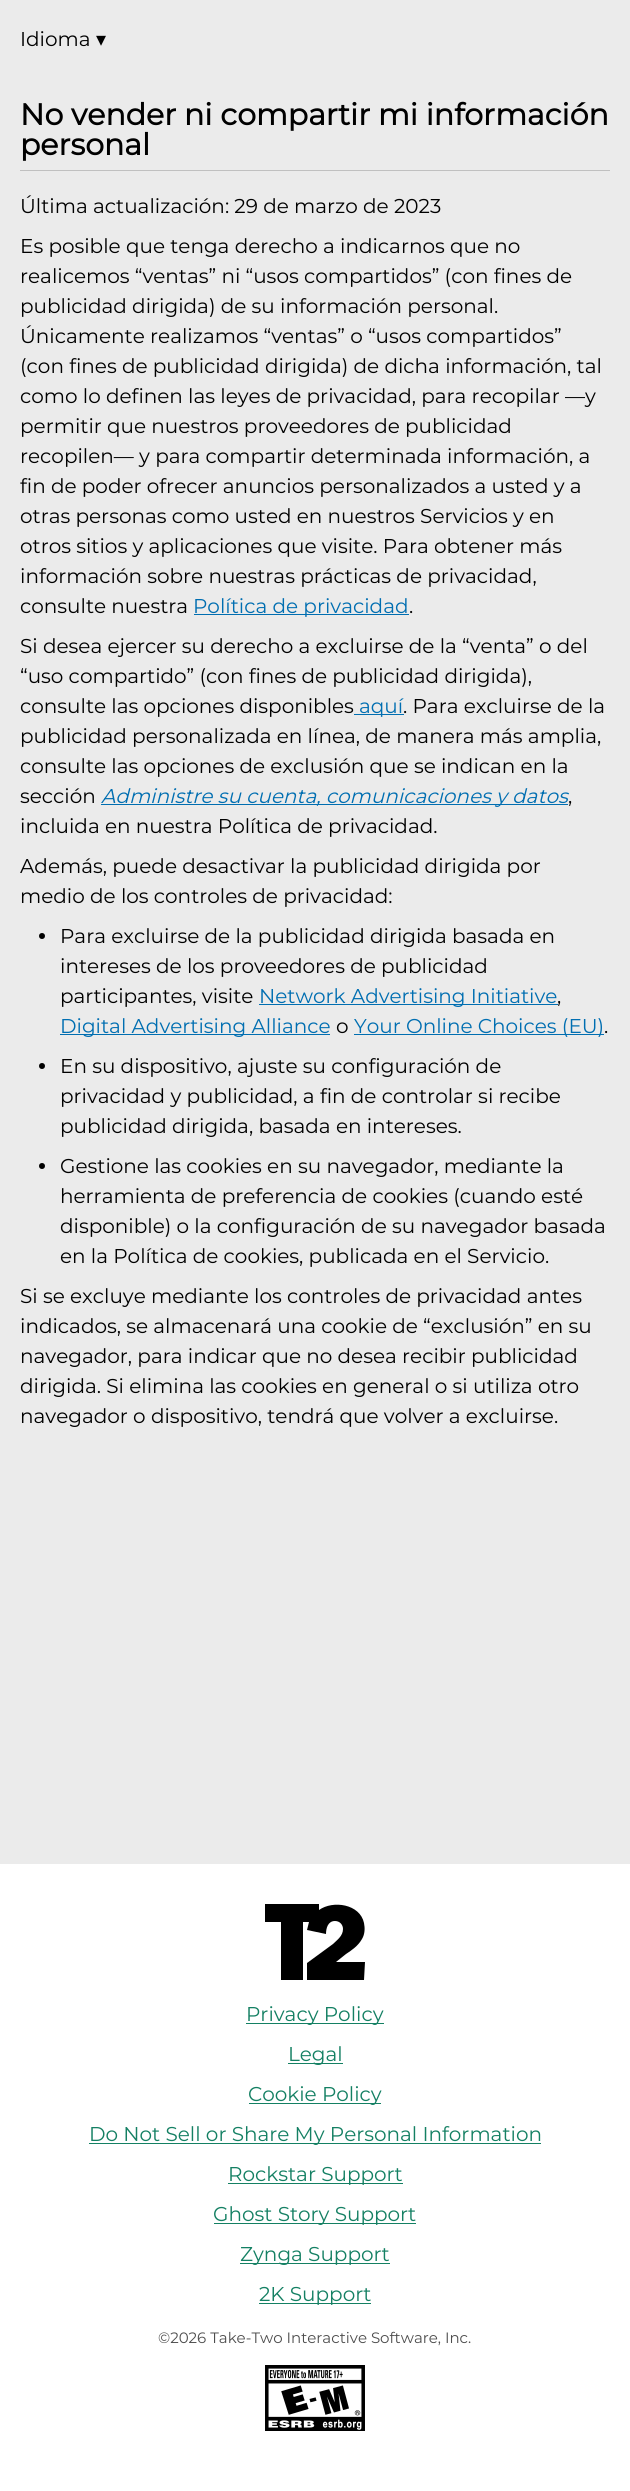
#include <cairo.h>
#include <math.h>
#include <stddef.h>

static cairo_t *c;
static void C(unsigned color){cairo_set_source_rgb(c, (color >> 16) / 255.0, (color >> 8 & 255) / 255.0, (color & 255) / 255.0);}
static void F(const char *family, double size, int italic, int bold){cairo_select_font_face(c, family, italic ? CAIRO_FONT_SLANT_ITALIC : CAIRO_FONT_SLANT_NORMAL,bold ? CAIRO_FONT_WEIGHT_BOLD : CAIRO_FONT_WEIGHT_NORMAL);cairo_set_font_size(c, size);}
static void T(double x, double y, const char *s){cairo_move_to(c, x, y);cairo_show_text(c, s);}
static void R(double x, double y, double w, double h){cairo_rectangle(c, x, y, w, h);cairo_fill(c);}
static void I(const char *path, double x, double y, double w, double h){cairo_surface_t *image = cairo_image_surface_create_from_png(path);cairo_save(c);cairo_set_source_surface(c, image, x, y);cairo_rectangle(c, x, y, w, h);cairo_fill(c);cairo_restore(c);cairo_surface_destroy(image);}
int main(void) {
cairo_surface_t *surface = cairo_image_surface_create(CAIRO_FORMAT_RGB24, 630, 2491);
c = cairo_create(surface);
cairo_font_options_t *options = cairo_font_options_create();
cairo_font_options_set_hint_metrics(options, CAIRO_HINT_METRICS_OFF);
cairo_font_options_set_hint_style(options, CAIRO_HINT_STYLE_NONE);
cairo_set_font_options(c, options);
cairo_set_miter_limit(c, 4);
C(0xebebeb);
cairo_paint(c);
F("Montserrat Thin",20,0,0);
C(0x000000);
T(20,46,"Idioma");
F("DejaVu Sans",20,0,0);
T(96,46,"▾");
C(0xc0c0c0);
R(20,170,590,1);
F("Montserrat",30,0,1);
C(0x000000);
T(20,125,"No vender ni compartir mi información");
T(20,155,"personal");
F("Montserrat Thin",20,0,0);
T(20,213,"Última actualización: 29 de marzo de 2023");
T(20,253,"Es posible que tenga derecho a indicarnos que no");
T(20,283,"realicemos “ventas” ni “usos compartidos” (con fines de");
T(20,313,"publicidad dirigida) de su información personal.");
T(20,343,"Únicamente realizamos “ventas” o “usos compartidos”");
T(20,373,"(con fines de publicidad dirigida) de dicha información, tal");
T(20,403,"como lo definen las leyes de privacidad, para recopilar —y");
T(20,433,"permitir que nuestros proveedores de publicidad");
T(20,463,"recopilen— y para compartir determinada información, a");
T(20,493,"fin de poder ofrecer anuncios personalizados a usted y a");
T(20,523,"otras personas como usted en nuestros Servicios y en");
T(20,553,"otros sitios y aplicaciones que visite. Para obtener más");
T(20,583,"información sobre nuestras prácticas de privacidad,");
T(20,613,"consulte nuestra");
C(0x006eb1);
R(194,614,215,1);
T(193,613,"Política de privacidad");
C(0x000000);
T(409,613,".");
T(20,653,"Si desea ejercer su derecho a excluirse de la “venta” o del");
T(20,683,"“uso compartido” (con fines de publicidad dirigida),");
T(20,713,"consulte las opciones disponibles");
C(0x006eb1);
R(354,714,50,1);
T(359,713,"aquí");
C(0x000000);
T(403,713,". Para excluirse de la");
T(20,743,"publicidad personalizada en línea, de manera más amplia,");
T(20,773,"consulte las opciones de exclusión que se indican en la");
T(20,803,"sección");
C(0x006eb1);
R(101,804,467,1);
F("Montserrat Thin",20,1,0);
T(101,803,"Administre su cuenta, comunicaciones y datos");
F("Montserrat Thin",20,0,0);
C(0x000000);
T(568,803,",");
T(20,833,"incluida en nuestra Política de privacidad.");
T(20,873,"Además, puede desactivar la publicidad dirigida por");
T(20,903,"medio de los controles de privacidad:");
cairo_new_path(c);
cairo_arc(c,42,936,3,0,2 * M_PI);
cairo_fill(c);
T(60,943,"Para excluirse de la publicidad dirigida basada en");
T(60,973,"intereses de los proveedores de publicidad");
T(60,1003,"participantes, visite");
C(0x006eb1);
R(259,1004,299,1);
T(259,1003,"Network Advertising Initiative");
C(0x000000);
T(557,1003,",");
C(0x006eb1);
R(60,1034,270,1);
T(60,1033,"Digital Advertising Alliance");
C(0x000000);
T(336,1033,"o");
C(0x006eb1);
R(354,1034,250,1);
T(354,1033,"Your Online Choices (EU)");
C(0x000000);
T(604,1033,".");
cairo_new_path(c);
cairo_arc(c,42,1066,3,0,2 * M_PI);
cairo_fill(c);
T(60,1073,"En su dispositivo, ajuste su configuración de");
T(60,1103,"privacidad y publicidad, a fin de controlar si recibe");
T(60,1133,"publicidad dirigida, basada en intereses.");
cairo_new_path(c);
cairo_arc(c,42,1166,3,0,2 * M_PI);
cairo_fill(c);
T(60,1173,"Gestione las cookies en su navegador, mediante la");
T(60,1203,"herramienta de preferencia de cookies (cuando esté");
T(60,1233,"disponible) o la configuración de su navegador basada");
T(60,1263,"en la Política de cookies, publicada en el Servicio.");
T(20,1303,"Si se excluye mediante los controles de privacidad antes");
T(20,1333,"indicados, se almacenará una cookie de “exclusión” en su");
T(20,1363,"navegador, para indicar que no desea recibir publicidad");
T(20,1393,"dirigida. Si elimina las cookies en general o si utiliza otro");
T(20,1423,"navegador o dispositivo, tendrá que volver a excluirse.");
C(0xffffff);
R(0,1864,630,627);
C(0x000000);
cairo_new_path(c);
cairo_move_to(c,336,1962);
cairo_line_to(c,346,1954);
cairo_curve_to(c,352,1950,358,1946,362,1939);
cairo_curve_to(c,365,1934,365,1928,364,1923);
cairo_curve_to(c,360,1904,333,1900,319,1910);
cairo_line_to(c,319,1904);
cairo_line_to(c,265,1904);
cairo_line_to(c,265,1922);
cairo_line_to(c,281,1922);
cairo_line_to(c,281,1980);
cairo_line_to(c,303,1980);
cairo_line_to(c,303,1922);
cairo_line_to(c,309,1922);
cairo_line_to(c,307,1930);
cairo_line_to(c,326,1934);
cairo_curve_to(c,326,1928,328,1921,335,1921);
cairo_curve_to(c,340,1921,343,1925,343,1929);
cairo_curve_to(c,343,1936,337,1940,333,1944);
cairo_line_to(c,307,1963);
cairo_line_to(c,307,1980);
cairo_line_to(c,364,1980);
cairo_line_to(c,365,1962);
cairo_close_path(c);
cairo_fill(c);
C(0x148063);
R(246,2023,138,1);
T(246,2021,"Privacy Policy");
R(288,2063,55,1);
T(288,2061,"Legal");
R(249,2103,132,1);
T(248,2101,"Cookie Policy");
R(89,2143,452,1);
T(89,2141,"Do Not Sell or Share My Personal Information");
R(228,2183,175,1);
T(228,2181,"Rockstar Support");
R(214,2223,202,1);
T(213,2221,"Ghost Story Support");
R(240,2263,150,1);
T(240,2261,"Zynga Support");
R(259,2303,112,1);
T(259,2301,"2K Support");
F("Montserrat Thin",15,0,0);
C(0x4d4d4d);
T(158,2343,"©2026 Take-Two Interactive Software, Inc.");
I("1.png",265,2365,100,66);
cairo_surface_write_to_png(surface, "o.png");
cairo_font_options_destroy(options);
cairo_destroy(c);
cairo_surface_destroy(surface);
return 0;
}
